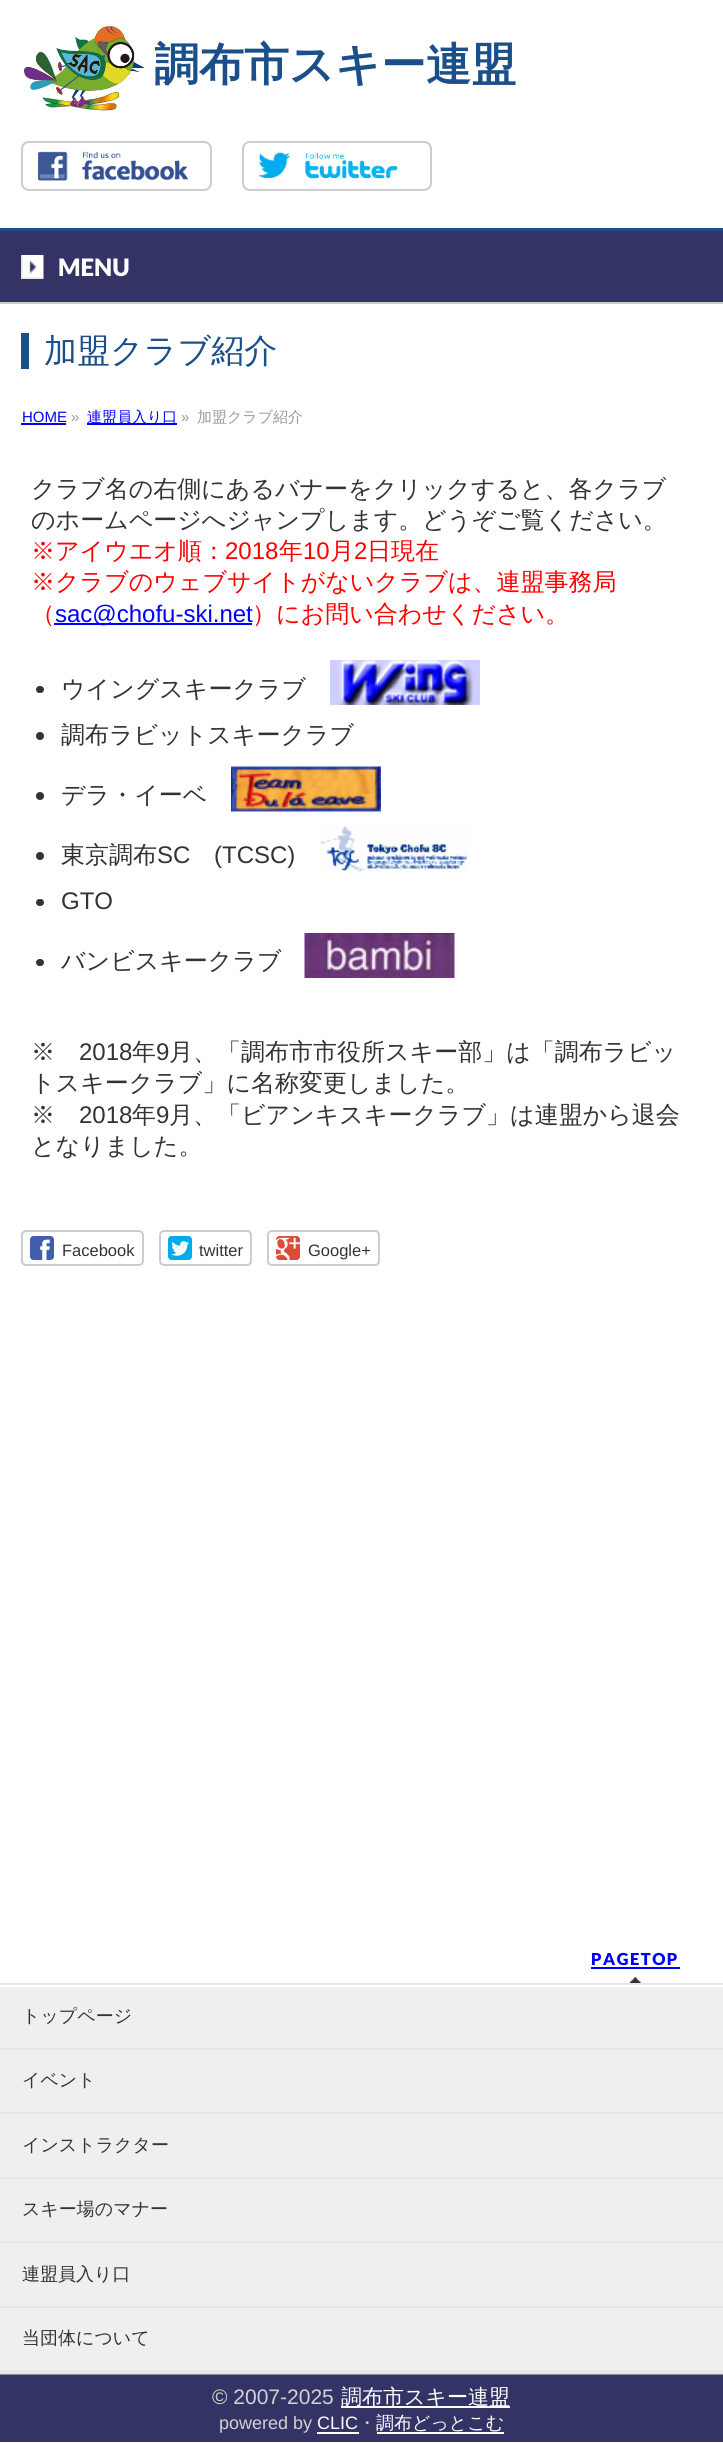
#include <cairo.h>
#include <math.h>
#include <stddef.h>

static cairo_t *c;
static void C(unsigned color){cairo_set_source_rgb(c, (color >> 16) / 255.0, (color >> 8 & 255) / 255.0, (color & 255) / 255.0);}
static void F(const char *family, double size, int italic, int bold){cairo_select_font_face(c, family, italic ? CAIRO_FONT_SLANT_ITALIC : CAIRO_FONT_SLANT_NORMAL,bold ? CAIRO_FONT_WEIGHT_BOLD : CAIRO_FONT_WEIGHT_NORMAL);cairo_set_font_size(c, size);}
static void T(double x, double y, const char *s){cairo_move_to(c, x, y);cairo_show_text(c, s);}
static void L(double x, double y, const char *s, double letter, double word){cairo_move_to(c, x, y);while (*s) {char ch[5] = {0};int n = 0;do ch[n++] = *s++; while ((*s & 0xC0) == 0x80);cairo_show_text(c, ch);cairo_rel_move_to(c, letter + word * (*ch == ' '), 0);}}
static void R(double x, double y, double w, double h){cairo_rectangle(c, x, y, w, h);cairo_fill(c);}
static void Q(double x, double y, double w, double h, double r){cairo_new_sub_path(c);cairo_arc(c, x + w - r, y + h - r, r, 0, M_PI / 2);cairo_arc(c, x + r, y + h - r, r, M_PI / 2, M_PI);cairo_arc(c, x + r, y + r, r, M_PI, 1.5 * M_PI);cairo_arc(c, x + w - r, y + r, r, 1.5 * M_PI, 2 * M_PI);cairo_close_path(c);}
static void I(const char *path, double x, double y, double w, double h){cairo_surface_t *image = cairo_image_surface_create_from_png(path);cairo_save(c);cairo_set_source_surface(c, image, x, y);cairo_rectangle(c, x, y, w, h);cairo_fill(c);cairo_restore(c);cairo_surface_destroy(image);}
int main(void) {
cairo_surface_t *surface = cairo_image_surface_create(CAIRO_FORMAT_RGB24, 723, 2443);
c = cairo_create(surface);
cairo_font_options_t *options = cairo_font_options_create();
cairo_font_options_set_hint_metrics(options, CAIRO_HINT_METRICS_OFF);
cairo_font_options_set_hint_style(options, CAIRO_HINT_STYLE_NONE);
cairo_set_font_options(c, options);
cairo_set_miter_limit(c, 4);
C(0xffffff);
cairo_paint(c);
I("1.png",24,26,121,85);
F("WenQuanYi Zen Hei",45,0,1);
C(0x1b4f8a);
T(154,80,"調布市スキー連盟");
Q(22,142,189,48,7);
C(0xcccccc);
cairo_stroke(c);
I("2.png",37,151,151,30);
Q(243,142,188,48,7);
cairo_stroke(c);
I("3.png",258,152,140,27);
C(0x333366);
R(0,231,723,71);
C(0x1b4f8a);
R(0,228,723,3);
C(0xcccccc);
R(0,302,723,2);
I("4.png",21,255,23,24);
F("Lato Black",24,0,0);
C(0xffffff);
T(58,276,"MENU");
C(0x1b4f8a);
R(21,333,8,36);
F("WenQuanYi Zen Hei Medium",33,0,0);
T(44,362,"加盟クラブ紹介");
F("Liberation Sans",15,0,0);
C(0x0000ff);
T(22,422,"HOME");
R(21,423,45,2);
C(0x999999);
T(71,422,"»");
C(0x0000ff);
R(87,423,90,2);
F("WenQuanYi Zen Hei Medium",15,0,0);
T(87,422,"連盟員入り口");
F("Liberation Sans",15,0,0);
C(0x999999);
T(181,422,"»");
F("WenQuanYi Zen Hei Medium",15,0,0);
T(197,422,"加盟クラブ紹介");
F("WenQuanYi Zen Hei Medium",24,0,0);
C(0x333333);
T(31,497,"クラブ名の右側にあるバナーをクリックすると、各クラブ");
T(31,528,"のホームページへジャンプします。どうぞご覧ください。");
C(0xff0000);
T(31,559,"※アイウエオ順：");
F("Liberation Sans",24,0,0);
T(225,559,"2018");
F("WenQuanYi Zen Hei Medium",24,0,0);
T(279,559,"年");
F("Liberation Sans",24,0,0);
T(303,559,"10");
F("WenQuanYi Zen Hei Medium",24,0,0);
T(330,559,"月");
F("Liberation Sans",24,0,0);
T(354,559,"2");
F("WenQuanYi Zen Hei Medium",24,0,0);
T(367,559,"日現在");
T(31,590,"※クラブのウェブサイトがないクラブは、連盟事務局");
T(31,622,"（");
C(0x0000ff);
R(54,623,198,2);
F("Liberation Sans",24,0,0);
T(55,622,"sac@chofu-ski.net");
F("WenQuanYi Zen Hei Medium",24,0,0);
C(0xff0000);
T(252,622,"）にお問い合わせください。");
C(0x333333);
Q(36,686,8,7,3.5);
cairo_fill(c);
T(61,697,"ウイングスキークラブ");
I("5.png",330,660,150,45);
cairo_arc(c,40,736,4,0,2 * M_PI);
cairo_fill(c);
T(61,743,"調布ラビットスキークラブ");
cairo_new_path(c);
cairo_arc(c,40,796,4,0,2 * M_PI);
cairo_fill(c);
T(61,803,"デラ・イーベ");
I("6.png",231,766,150,46);
cairo_arc(c,40,856,4,0,2 * M_PI);
cairo_fill(c);
T(61,863,"東京調布");
F("Liberation Sans",24,0,0);
T(157,863,"SC");
T(214,863,"(TCSC)");
I("7.png",319,826,151,46);
Q(36,899,8,7,3.5);
cairo_fill(c);
T(61,909,"GTO");
Q(36,959,8,7,3.5);
cairo_fill(c);
F("WenQuanYi Zen Hei Medium",24,0,0);
T(61,969,"バンビスキークラブ");
I("8.png",304,933,151,45);
T(31,1060,"※");
F("Liberation Sans",24,0,0);
T(79,1060,"2018");
F("WenQuanYi Zen Hei Medium",24,0,0);
T(132,1060,"年");
F("Liberation Sans",24,0,0);
T(156,1060,"9");
F("WenQuanYi Zen Hei Medium",24,0,0);
T(169,1060,"月、「調布市市役所スキー部」は「調布ラビッ");
T(31,1091,"トスキークラブ」に名称変更しました。");
T(31,1123,"※");
F("Liberation Sans",24,0,0);
T(79,1123,"2018");
F("WenQuanYi Zen Hei Medium",24,0,0);
T(132,1123,"年");
F("Liberation Sans",24,0,0);
T(156,1123,"9");
F("WenQuanYi Zen Hei Medium",24,0,0);
T(169,1123,"月、「ビアンキスキークラブ」は連盟から退会");
T(31,1154,"となりました。");
Q(22,1231,121,34,4);
C(0xcccccc);
cairo_stroke(c);
I("9.png",30,1236,24,24);
F("Liberation Sans",16.5,0,0);
C(0x333333);
T(62,1256,"Facebook");
Q(160,1231,91,34,4);
C(0xcccccc);
cairo_stroke(c);
I("10.png",168,1236,24,24);
C(0x333333);
T(199,1256,"twitter");
Q(268,1231,111,34,4);
C(0xcccccc);
cairo_stroke(c);
I("11.png",276,1236,24,24);
C(0x333333);
T(308,1256,"Google+");
I("12.png",630,1977,11,6);
F("Lato Black",16.5,0,0);
C(0x0000ff);
L(591,1965,"PAGETOP",1.5,0);
R(591,1967,89,2);
C(0xefefef);
R(0,1987,723,383);
C(0xe6e6e6);
R(0,1983,723,2);
R(0,2370,723,4);
R(0,2048,723,2);
F("WenQuanYi Zen Hei Medium",18,0,0);
C(0x333333);
T(22,2022,"トップページ");
C(0xe6e6e6);
R(0,2112,723,2);
C(0x333333);
T(22,2086,"イベント");
C(0xe6e6e6);
R(0,2177,723,2);
C(0x333333);
T(22,2151,"インストラクター");
C(0xe6e6e6);
R(0,2241,723,2);
C(0x333333);
T(22,2215,"スキー場のマナー");
C(0xe6e6e6);
R(0,2306,723,2);
C(0x333333);
T(22,2280,"連盟員入り口");
T(22,2344,"当団体について");
C(0x333366);
R(0,2375,723,67);
C(0x8a898c);
R(0,2374,723,1);
F("Liberation Sans",21,0,0);
C(0xd2d2d3);
T(212,2404,"© 2007-2025");
C(0xffffff);
R(341,2406,169,2);
F("WenQuanYi Zen Hei Medium",21,0,0);
T(341,2404,"調布市スキー連盟");
F("Liberation Sans",18,0,0);
C(0xd2d2d3);
T(219,2429,"powered by");
C(0xffffff);
T(317,2429,"CLIC");
R(317,2432,42,2);
F("WenQuanYi Zen Hei Medium",18,0,0);
C(0xd2d2d3);
T(358,2429,"・");
C(0xffffff);
T(376,2429,"調布どっとこむ");
R(377,2432,127,2);
cairo_surface_write_to_png(surface, "o.png");
cairo_font_options_destroy(options);
cairo_destroy(c);
cairo_surface_destroy(surface);
return 0;
}
